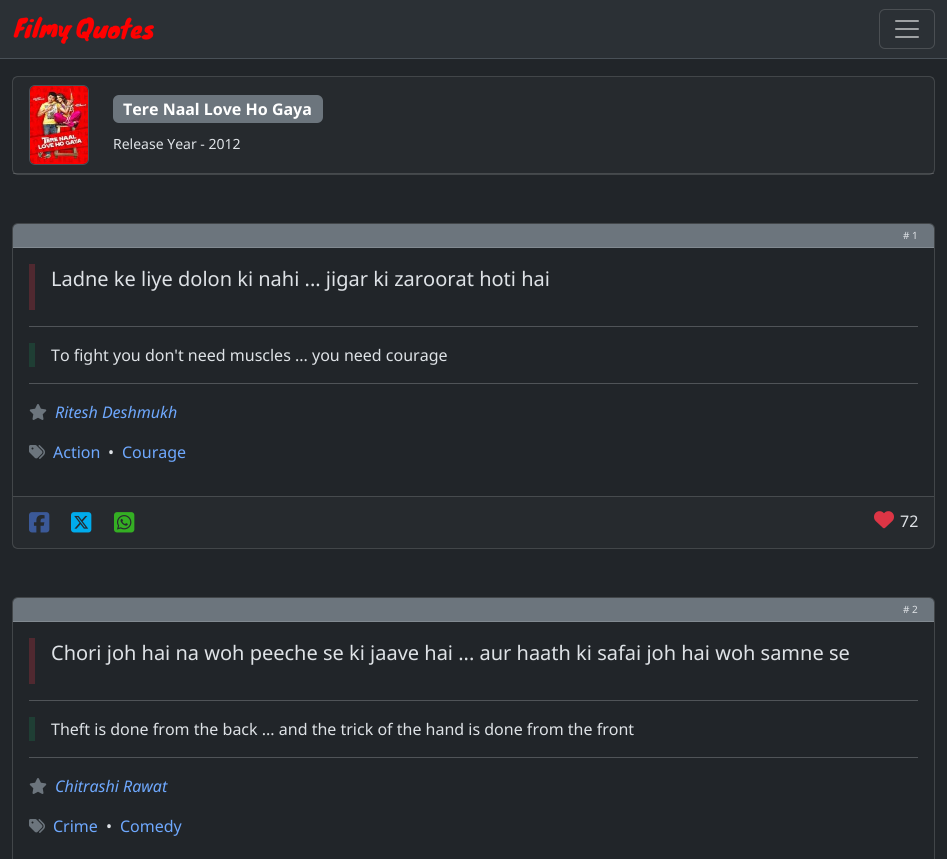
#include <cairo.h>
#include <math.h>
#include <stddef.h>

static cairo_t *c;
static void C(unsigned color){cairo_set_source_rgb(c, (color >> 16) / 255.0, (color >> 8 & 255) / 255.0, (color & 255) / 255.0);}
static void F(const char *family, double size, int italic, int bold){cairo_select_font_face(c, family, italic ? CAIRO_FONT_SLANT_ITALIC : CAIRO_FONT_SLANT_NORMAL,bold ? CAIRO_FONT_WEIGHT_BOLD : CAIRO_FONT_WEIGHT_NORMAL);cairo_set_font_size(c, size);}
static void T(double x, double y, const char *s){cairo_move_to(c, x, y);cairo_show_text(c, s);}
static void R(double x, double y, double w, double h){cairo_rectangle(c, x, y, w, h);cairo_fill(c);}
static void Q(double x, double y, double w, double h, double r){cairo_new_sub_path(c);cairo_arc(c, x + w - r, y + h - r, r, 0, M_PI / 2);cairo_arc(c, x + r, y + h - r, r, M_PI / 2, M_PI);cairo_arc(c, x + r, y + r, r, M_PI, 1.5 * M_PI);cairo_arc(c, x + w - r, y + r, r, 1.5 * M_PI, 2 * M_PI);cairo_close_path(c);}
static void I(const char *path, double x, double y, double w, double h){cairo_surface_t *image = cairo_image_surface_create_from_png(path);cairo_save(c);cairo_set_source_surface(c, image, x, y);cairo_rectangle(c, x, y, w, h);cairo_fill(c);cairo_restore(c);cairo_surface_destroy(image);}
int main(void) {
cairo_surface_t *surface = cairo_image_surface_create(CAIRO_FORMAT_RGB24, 947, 859);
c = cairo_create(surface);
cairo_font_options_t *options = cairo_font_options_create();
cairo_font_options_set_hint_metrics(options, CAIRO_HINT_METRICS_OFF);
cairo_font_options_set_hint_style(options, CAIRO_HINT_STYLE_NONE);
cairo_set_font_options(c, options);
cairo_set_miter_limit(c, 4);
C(0x212529);
cairo_paint(c);
C(0x2b3035);
R(0,0,947,58);
C(0x495057);
R(0,58,947,1);
I("1.png",13,16,141,28);
Q(879.5,9.5,55,39,5.5);
C(0x4b4f53);
cairo_set_line_width(c,1);
cairo_stroke(c);
I("2.png",895,20,24,18);
Q(12.5,76.5,922,98,5.5);
C(0x424649);
cairo_stroke(c);
cairo_set_source_rgba(c,0.871,0.886,0.902,0.03);
R(13,77,921,97);
cairo_set_source_rgba(c,1,1,1,0.15);
R(13,173,921,1);
Q(29.5,85.5,59,79,5.5);
C(0x495057);
cairo_stroke(c);
I("3.png",30,86,58,78);
C(0x6c757d);
Q(113,95,210,28,6);
cairo_fill(c);
F("Noto Sans",16,0,1);
C(0xffffff);
T(123,115,"Tere Naal Love Ho Gaya");
F("Noto Sans",14,0,0);
C(0xdee2e6);
T(113,149,"Release Year - 2012");
Q(12.5,223.5,922,325,5.5);
C(0x424649);
cairo_stroke(c);
C(0x6c757d);
cairo_new_path(c);
cairo_move_to(c,18,224);
cairo_line_to(c,929,224);
cairo_curve_to(c,932,224,934,226,934,229);
cairo_line_to(c,934,248);
cairo_line_to(c,13,248);
cairo_line_to(c,13,229);
cairo_curve_to(c,13,226,15,224,18,224);
cairo_close_path(c);
cairo_fill(c);
C(0x828a91);
R(13,247,921,1);
F("Noto Sans",10,0,0);
C(0xdee2e6);
T(903,239,"# 1");
C(0x502930);
R(29,264,6,46);
F("Noto Sans",20,0,0);
C(0xdee2e6);
T(51,286,"Ladne ke liye dolon ki nahi ... jigar ki zaroorat hoti hai");
C(0x505458);
R(29,326,889,1);
C(0x1f3e34);
R(29,343,6,24);
F("Noto Sans",16,0,0);
C(0xdee2e6);
T(51,361,"To fight you don't need muscles ... you need courage");
C(0x505458);
R(29,383,889,1);
I("4.png",29,404,18,16);
F("Noto Sans",16,1,0);
C(0x6ea8fe);
T(55,418,"Ritesh Deshmukh");
I("5.png",29,445,16,14);
F("Noto Sans",16,0,0);
T(53,458,"Action");
C(0xdee2e6);
T(108,458,"•");
C(0x6ea8fe);
T(122,458,"Courage");
cairo_set_source_rgba(c,0.871,0.886,0.902,0.03);
R(13,497,921,51);
C(0x474b4e);
R(13,496,921,1);
I("6.png",29,512,21,21);
I("7.png",71,512,21,21);
I("8.png",114,512,21,21);
I("9.png",874,511,20,18);
C(0xdee2e6);
T(900,527,"72");
Q(12.5,597.5,922,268,5.5);
C(0x424649);
cairo_stroke(c);
C(0x6c757d);
cairo_new_path(c);
cairo_move_to(c,18,598);
cairo_line_to(c,929,598);
cairo_curve_to(c,932,598,934,600,934,603);
cairo_line_to(c,934,622);
cairo_line_to(c,13,622);
cairo_line_to(c,13,603);
cairo_curve_to(c,13,600,15,598,18,598);
cairo_close_path(c);
cairo_fill(c);
C(0x828a91);
R(13,621,921,1);
F("Noto Sans",10,0,0);
C(0xdee2e6);
T(903,613,"# 2");
C(0x502930);
R(29,638,6,46);
F("Noto Sans",20,0,0);
C(0xdee2e6);
T(51,660,"Chori joh hai na woh peeche se ki jaave hai ... aur haath ki safai joh hai woh samne se");
C(0x505458);
R(29,700,889,1);
C(0x1f3e34);
R(29,717,6,24);
F("Noto Sans",16,0,0);
C(0xdee2e6);
T(51,735,"Theft is done from the back ... and the trick of the hand is done from the front");
C(0x505458);
R(29,757,889,1);
I("4.png",29,778,18,16);
F("Noto Sans",16,1,0);
C(0x6ea8fe);
T(55,792,"Chitrashi Rawat");
I("5.png",29,819,16,14);
F("Noto Sans",16,0,0);
T(53,832,"Crime");
C(0xdee2e6);
T(106,832,"•");
C(0x6ea8fe);
T(120,832,"Comedy");
cairo_surface_write_to_png(surface, "o.png");
cairo_font_options_destroy(options);
cairo_destroy(c);
cairo_surface_destroy(surface);
return 0;
}
